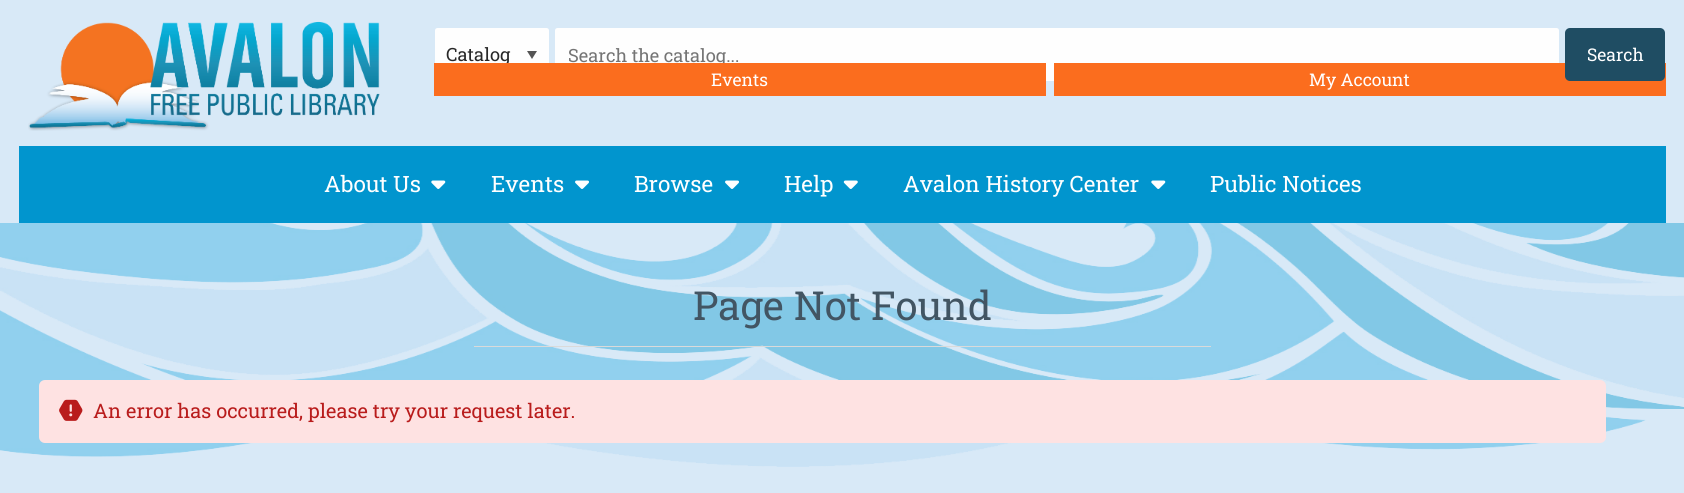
#include <cairo.h>
#include <math.h>
#include <stddef.h>

static cairo_t *c;
static void C(unsigned color){cairo_set_source_rgb(c, (color >> 16) / 255.0, (color >> 8 & 255) / 255.0, (color & 255) / 255.0);}
static void F(const char *family, double size, int italic, int bold){cairo_select_font_face(c, family, italic ? CAIRO_FONT_SLANT_ITALIC : CAIRO_FONT_SLANT_NORMAL,bold ? CAIRO_FONT_WEIGHT_BOLD : CAIRO_FONT_WEIGHT_NORMAL);cairo_set_font_size(c, size);}
static void T(double x, double y, const char *s){cairo_move_to(c, x, y);cairo_show_text(c, s);}
static void R(double x, double y, double w, double h){cairo_rectangle(c, x, y, w, h);cairo_fill(c);}
static void Q(double x, double y, double w, double h, double r){cairo_new_sub_path(c);cairo_arc(c, x + w - r, y + h - r, r, 0, M_PI / 2);cairo_arc(c, x + r, y + h - r, r, M_PI / 2, M_PI);cairo_arc(c, x + r, y + r, r, M_PI, 1.5 * M_PI);cairo_arc(c, x + w - r, y + r, r, 1.5 * M_PI, 2 * M_PI);cairo_close_path(c);}
static void I(const char *path, double x, double y, double w, double h){cairo_surface_t *image = cairo_image_surface_create_from_png(path);cairo_save(c);cairo_set_source_surface(c, image, x, y);cairo_rectangle(c, x, y, w, h);cairo_fill(c);cairo_restore(c);cairo_surface_destroy(image);}
int main(void) {
cairo_surface_t *surface = cairo_image_surface_create(CAIRO_FORMAT_RGB24, 1684, 493);
c = cairo_create(surface);
cairo_font_options_t *options = cairo_font_options_create();
cairo_font_options_set_hint_metrics(options, CAIRO_HINT_METRICS_OFF);
cairo_font_options_set_hint_style(options, CAIRO_HINT_STYLE_NONE);
cairo_set_font_options(c, options);
cairo_set_miter_limit(c, 4);
C(0xd8e9f7);
cairo_paint(c);
I("1.png",28,21,352,110);
C(0xfefefe);
Q(435,28,114,53,2.5);
cairo_fill(c);
C(0x545454);
cairo_new_path(c);
cairo_move_to(c,527,51);
cairo_line_to(c,537,51);
cairo_line_to(c,532,59);
cairo_close_path(c);
cairo_fill(c);
F("Roboto Slab",18.25,0,0);
C(0x282828);
T(446,61,"Catalog");
C(0xfefefe);
Q(555,28,1004,53,2.5);
cairo_fill(c);
C(0x757575);
T(568,62,"Search the catalog...");
C(0xfb6d1e);
R(1054,63,612,33);
C(0x1f4d63);
Q(1565,28,100,53,5);
cairo_fill(c);
F("Roboto Slab",17.5,0,0);
C(0xffffff);
T(1587,61,"Search");
C(0xfb6d1e);
R(434,63,612,33);
C(0xffffff);
T(711,86,"Events");
T(1309,86,"My Account");
C(0x0195ce);
R(19,146,1647,77);
F("Roboto Slab",22.5,0,0);
C(0xffffff);
T(324,192,"About Us");
I("2.png",431,180,15,9);
T(491,192,"Events");
I("3.png",575,180,14,9);
T(634,192,"Browse");
I("3.png",725,180,14,9);
T(784,192,"Help");
I("4.png",843,180,15,9);
T(903,192,"Avalon History Center");
I("2.png",1151,180,15,9);
T(1210,192,"Public Notices");
I("5.png",0,223,1684,244);
C(0xdadada);
R(474,346,737,1);
F("Roboto Slab",40,0,0);
C(0x425563);
T(693,320,"Page Not Found");
C(0xfee2e2);
Q(39,380,1567,63,6);
cairo_fill(c);
I("6.png",59,399,24,22);
F("Roboto Slab",20,0,0);
C(0xb91c1c);
T(93,418,"An error has occurred, please try your request later.");
cairo_surface_write_to_png(surface, "o.png");
cairo_font_options_destroy(options);
cairo_destroy(c);
cairo_surface_destroy(surface);
return 0;
}
